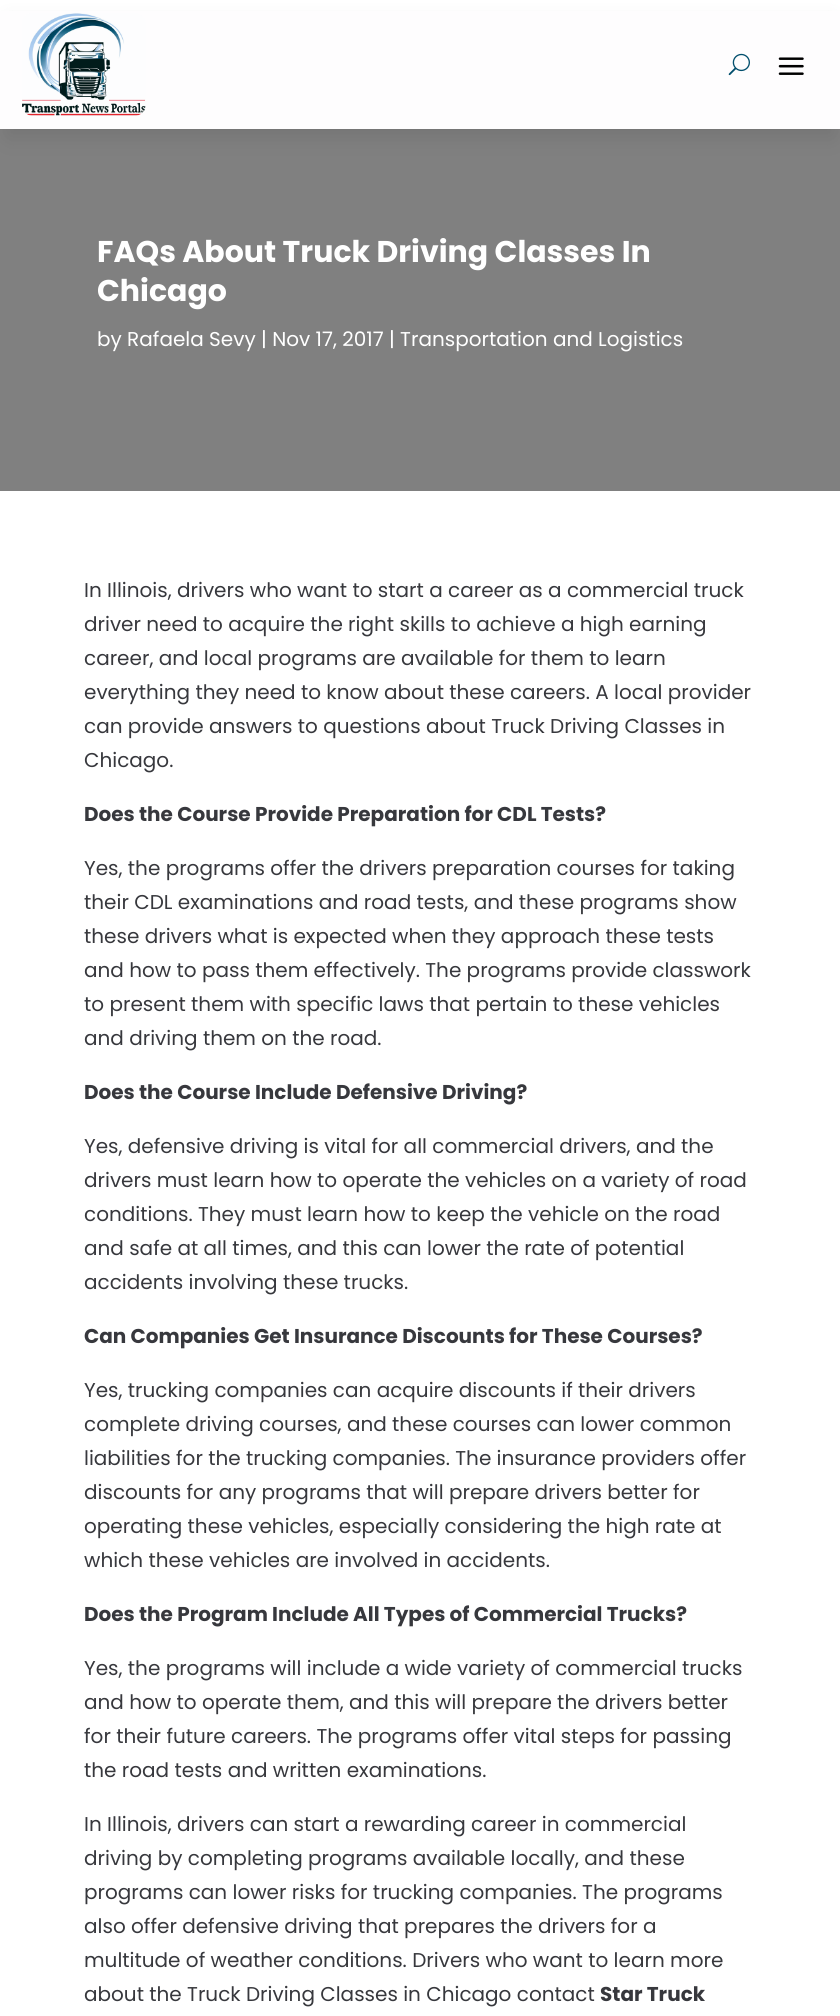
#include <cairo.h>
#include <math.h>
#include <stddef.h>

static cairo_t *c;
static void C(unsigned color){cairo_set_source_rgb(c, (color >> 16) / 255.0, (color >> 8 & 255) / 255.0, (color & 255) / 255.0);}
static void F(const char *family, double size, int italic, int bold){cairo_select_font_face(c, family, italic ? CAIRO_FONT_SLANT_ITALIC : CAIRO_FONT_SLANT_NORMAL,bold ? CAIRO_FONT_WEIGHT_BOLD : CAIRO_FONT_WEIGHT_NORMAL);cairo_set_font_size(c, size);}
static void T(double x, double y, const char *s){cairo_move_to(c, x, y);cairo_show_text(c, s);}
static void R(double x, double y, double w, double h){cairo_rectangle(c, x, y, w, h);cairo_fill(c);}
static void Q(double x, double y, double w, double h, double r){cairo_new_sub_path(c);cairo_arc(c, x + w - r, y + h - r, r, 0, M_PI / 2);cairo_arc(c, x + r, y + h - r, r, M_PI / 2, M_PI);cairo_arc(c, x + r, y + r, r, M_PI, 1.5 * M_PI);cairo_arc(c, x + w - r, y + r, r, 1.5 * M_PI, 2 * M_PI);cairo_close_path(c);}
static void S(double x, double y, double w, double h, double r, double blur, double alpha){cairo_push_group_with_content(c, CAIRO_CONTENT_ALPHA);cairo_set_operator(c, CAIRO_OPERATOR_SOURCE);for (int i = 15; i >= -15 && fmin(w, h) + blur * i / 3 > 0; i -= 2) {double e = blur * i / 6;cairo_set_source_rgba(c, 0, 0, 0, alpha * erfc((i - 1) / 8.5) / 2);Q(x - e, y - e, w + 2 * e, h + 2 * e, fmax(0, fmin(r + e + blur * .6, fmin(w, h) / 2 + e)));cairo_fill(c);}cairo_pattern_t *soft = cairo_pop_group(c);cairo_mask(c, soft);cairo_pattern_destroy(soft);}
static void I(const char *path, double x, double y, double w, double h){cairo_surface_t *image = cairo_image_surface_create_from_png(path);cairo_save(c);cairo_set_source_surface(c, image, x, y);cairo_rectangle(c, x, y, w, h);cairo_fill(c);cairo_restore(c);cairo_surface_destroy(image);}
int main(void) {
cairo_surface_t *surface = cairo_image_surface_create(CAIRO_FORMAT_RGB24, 840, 2016);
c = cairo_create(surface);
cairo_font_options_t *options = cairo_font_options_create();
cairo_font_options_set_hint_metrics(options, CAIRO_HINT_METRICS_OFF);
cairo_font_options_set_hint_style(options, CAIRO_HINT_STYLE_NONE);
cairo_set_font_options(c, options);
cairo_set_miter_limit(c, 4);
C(0xffffff);
cairo_paint(c);
C(0x808080);
R(0,129,840,362);
C(0x000000);
S(8,23,825,113,0,11,.1);
C(0xfefdfe);
R(0,11,840,118);
I("1.png",22,13,124,103);
I("2.png",728,53,22,23);
I("3.png",778,57,26,18);
F("Poppins",30,0,1);
C(0xffffff);
T(97,262,"FAQs About Truck Driving Classes In");
T(97,301,"Chicago");
F("Poppins",20,0,0);
T(97,346,"by Rafaela Sevy | Nov 17, 2017 | Transportation and Logistics");
C(0x37383d);
T(84,597,"In Illinois, drivers who want to start a career as a commercial truck");
T(84,631,"driver need to acquire the right skills to achieve a high earning");
T(84,665,"career, and local programs are available for them to learn");
T(84,699,"everything they need to know about these careers. A local provider");
T(84,733,"can provide answers to questions about Truck Driving Classes in");
T(84,767,"Chicago.");
F("Poppins",20,0,1);
T(84,821,"Does the Course Provide Preparation for CDL Tests?");
F("Poppins",20,0,0);
T(84,875,"Yes, the programs offer the drivers preparation courses for taking");
T(84,909,"their CDL examinations and road tests, and these programs show");
T(84,943,"these drivers what is expected when they approach these tests");
T(84,977,"and how to pass them effectively. The programs provide classwork");
T(84,1011,"to present them with specific laws that pertain to these vehicles");
T(84,1045,"and driving them on the road.");
F("Poppins",20,0,1);
T(84,1099,"Does the Course Include Defensive Driving?");
F("Poppins",20,0,0);
T(84,1153,"Yes, defensive driving is vital for all commercial drivers, and the");
T(84,1187,"drivers must learn how to operate the vehicles on a variety of road");
T(84,1221,"conditions. They must learn how to keep the vehicle on the road");
T(84,1255,"and safe at all times, and this can lower the rate of potential");
T(84,1289,"accidents involving these trucks.");
F("Poppins",20,0,1);
T(84,1343,"Can Companies Get Insurance Discounts for These Courses?");
F("Poppins",20,0,0);
T(84,1397,"Yes, trucking companies can acquire discounts if their drivers");
T(84,1431,"complete driving courses, and these courses can lower common");
T(84,1465,"liabilities for the trucking companies. The insurance providers offer");
T(84,1499,"discounts for any programs that will prepare drivers better for");
T(84,1533,"operating these vehicles, especially considering the high rate at");
T(84,1567,"which these vehicles are involved in accidents.");
F("Poppins",20,0,1);
T(84,1621,"Does the Program Include All Types of Commercial Trucks?");
F("Poppins",20,0,0);
T(84,1675,"Yes, the programs will include a wide variety of commercial trucks");
T(84,1709,"and how to operate them, and this will prepare the drivers better");
T(84,1743,"for their future careers. The programs offer vital steps for passing");
T(84,1777,"the road tests and written examinations.");
T(84,1831,"In Illinois, drivers can start a rewarding career in commercial");
T(84,1865,"driving by completing programs available locally, and these");
T(84,1899,"programs can lower risks for trucking companies. The programs");
T(84,1933,"also offer defensive driving that prepares the drivers for a");
T(84,1967,"multitude of weather conditions. Drivers who want to learn more");
T(84,2001,"about the Truck Driving Classes in Chicago contact");
F("Poppins",20,0,1);
T(600,2001,"Star Truck");
cairo_surface_write_to_png(surface, "o.png");
cairo_font_options_destroy(options);
cairo_destroy(c);
cairo_surface_destroy(surface);
return 0;
}
